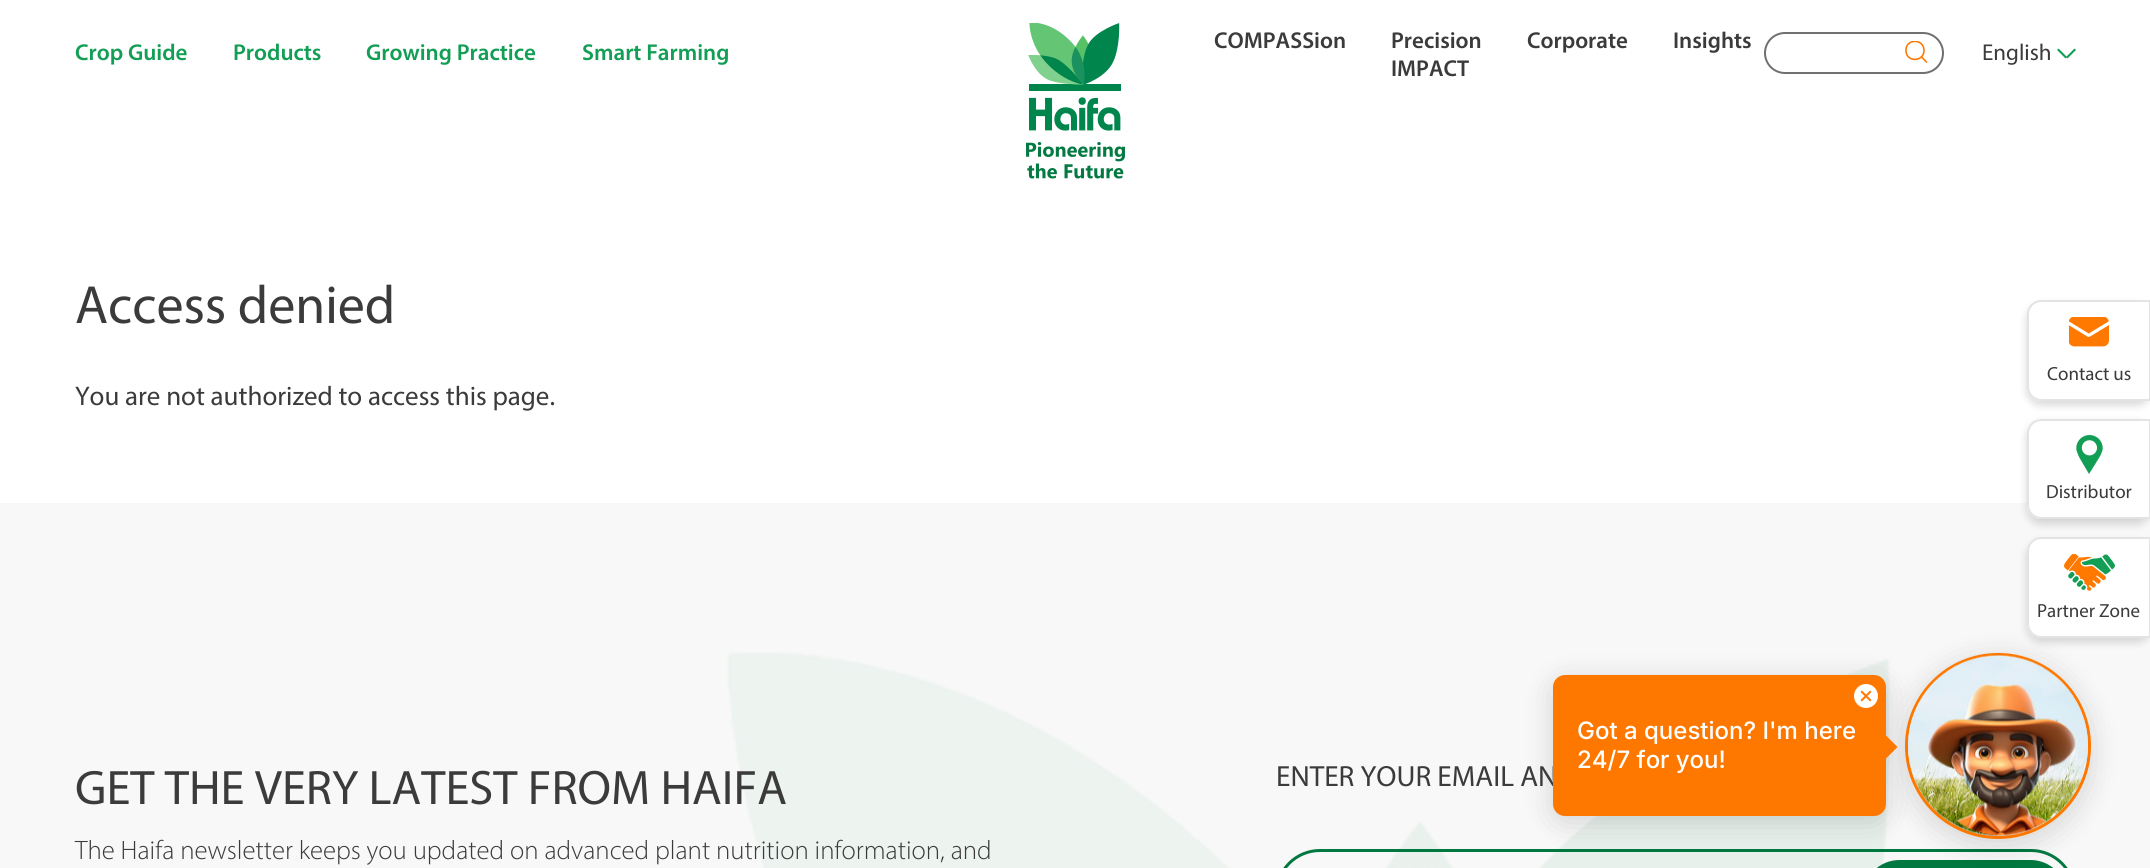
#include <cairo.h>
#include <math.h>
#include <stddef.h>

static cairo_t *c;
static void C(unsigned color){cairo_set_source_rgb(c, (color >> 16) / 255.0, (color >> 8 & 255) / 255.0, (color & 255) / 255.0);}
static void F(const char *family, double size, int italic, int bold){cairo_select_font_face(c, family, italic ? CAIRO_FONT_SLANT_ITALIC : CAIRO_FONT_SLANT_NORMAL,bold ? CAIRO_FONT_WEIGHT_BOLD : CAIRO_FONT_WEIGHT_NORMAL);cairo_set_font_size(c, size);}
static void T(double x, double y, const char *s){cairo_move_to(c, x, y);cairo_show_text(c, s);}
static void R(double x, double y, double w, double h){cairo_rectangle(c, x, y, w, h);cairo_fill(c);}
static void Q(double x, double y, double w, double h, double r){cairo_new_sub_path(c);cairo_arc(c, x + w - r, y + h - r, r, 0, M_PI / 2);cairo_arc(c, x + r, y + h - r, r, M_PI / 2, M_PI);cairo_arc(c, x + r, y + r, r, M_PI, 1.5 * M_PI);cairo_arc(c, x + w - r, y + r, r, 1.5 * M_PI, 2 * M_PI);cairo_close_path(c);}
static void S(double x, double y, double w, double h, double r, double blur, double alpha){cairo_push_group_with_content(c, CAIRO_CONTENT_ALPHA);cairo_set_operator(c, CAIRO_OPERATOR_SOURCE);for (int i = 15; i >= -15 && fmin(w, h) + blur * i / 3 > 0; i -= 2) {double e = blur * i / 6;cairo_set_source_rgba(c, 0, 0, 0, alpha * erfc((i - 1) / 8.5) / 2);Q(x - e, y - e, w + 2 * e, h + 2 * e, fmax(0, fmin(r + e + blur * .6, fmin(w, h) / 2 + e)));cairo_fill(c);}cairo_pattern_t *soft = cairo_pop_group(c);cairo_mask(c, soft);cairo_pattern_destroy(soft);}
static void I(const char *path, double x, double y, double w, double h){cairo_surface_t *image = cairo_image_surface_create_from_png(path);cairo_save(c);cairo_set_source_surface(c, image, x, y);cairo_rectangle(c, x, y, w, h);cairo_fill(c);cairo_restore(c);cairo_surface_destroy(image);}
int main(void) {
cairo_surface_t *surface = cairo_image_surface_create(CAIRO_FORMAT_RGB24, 2150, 868);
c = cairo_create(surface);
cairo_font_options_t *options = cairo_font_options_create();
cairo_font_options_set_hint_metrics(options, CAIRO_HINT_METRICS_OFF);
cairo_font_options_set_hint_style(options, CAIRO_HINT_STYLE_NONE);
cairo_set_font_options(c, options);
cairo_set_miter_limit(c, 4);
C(0xffffff);
cairo_paint(c);
F("Myriad SemiBold",23,0,0);
C(0x139e55);
T(75,60,"Crop Guide");
T(233,60,"Products");
T(366,60,"Growing Practice");
T(582,60,"Smart Farming");
I("1.png",1026,23,99,156);
C(0x3b3b3b);
T(1214,48,"COMPASSion");
T(1391,48,"Precision");
T(1391,76,"IMPACT");
T(1527,48,"Corporate");
T(1673,48,"Insights");
Q(1765,33,178,40,20);
C(0x707070);
cairo_stroke(c);
cairo_save(c);
cairo_rectangle(c,1905,41,23,22);
cairo_clip(c);
cairo_new_path(c);
cairo_move_to(c,1924,50.5);
cairo_curve_to(c,1924,62,1906.5,62.5,1906,51);
cairo_curve_to(c,1905,38.5,1924,38,1924,50.5);
cairo_close_path(c);
C(0xfd7800);
cairo_set_line_width(c,1.6);
cairo_set_line_cap(c,CAIRO_LINE_CAP_ROUND);
cairo_set_line_join(c,CAIRO_LINE_JOIN_ROUND);
cairo_stroke(c);
cairo_restore(c);
cairo_new_path(c);
cairo_move_to(c,1926.5,62);
cairo_line_to(c,1921.5,57);
C(0xfd7800);
cairo_set_line_width(c,1.6);
cairo_set_line_cap(c,CAIRO_LINE_CAP_ROUND);
cairo_set_line_join(c,CAIRO_LINE_JOIN_ROUND);
cairo_stroke(c);
F("Myriad",23,0,0);
C(0x3b3b3b);
T(1982,60,"English");
C(0x139e55);
cairo_new_path(c);
cairo_move_to(c,2058.5,48.5);
cairo_line_to(c,2067,57);
cairo_line_to(c,2065.5,58.5);
cairo_line_to(c,2057,50);
cairo_close_path(c);
cairo_fill(c);
cairo_new_path(c);
cairo_move_to(c,2066,57);
cairo_line_to(c,2074.5,48.5);
cairo_line_to(c,2076,50);
cairo_line_to(c,2067.5,58.5);
cairo_close_path(c);
cairo_fill(c);
F("Myriad",54,0,0);
C(0x3b3b3b);
T(75,323,"Access denied");
F("Myriad",27,0,0);
T(75,405,"You are not authorized to access this page.");
C(0x000000);
S(2027,305,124,100,14,4.5,.16);
C(0xffffff);
cairo_new_path(c);
cairo_move_to(c,2041,300);
cairo_line_to(c,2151,300);
cairo_line_to(c,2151,401);
cairo_line_to(c,2041,401);
cairo_curve_to(c,2033.5,401,2027,394.5,2027,387);
cairo_line_to(c,2027,314);
cairo_curve_to(c,2027,306.5,2033.5,300,2041,300);
cairo_close_path(c);
cairo_fill(c);
I("2.png",2069,317,40,30);
cairo_new_path(c);
cairo_move_to(c,2041,301);
cairo_line_to(c,2150,301);
cairo_line_to(c,2150,400);
cairo_line_to(c,2041,400);
cairo_curve_to(c,2034,400,2028,394,2028,387);
cairo_line_to(c,2028,314);
cairo_curve_to(c,2028,307,2034,301,2041,301);
cairo_close_path(c);
C(0xe3e3e3);
cairo_set_line_width(c,2);
cairo_set_line_cap(c,CAIRO_LINE_CAP_BUTT);
cairo_set_line_join(c,CAIRO_LINE_JOIN_MITER);
cairo_stroke(c);
F("Myriad",19,0,0);
C(0x3b3b3b);
T(2047,380,"Contact us");
C(0xf8f8f8);
R(0,503,2150,365);
C(0x000000);
S(2027,423,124,101,14,4.5,.16);
C(0xffffff);
cairo_new_path(c);
cairo_move_to(c,2041,419);
cairo_line_to(c,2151,419);
cairo_line_to(c,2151,519);
cairo_line_to(c,2041,519);
cairo_curve_to(c,2033.5,519,2027,512.5,2027,505);
cairo_line_to(c,2027,433);
cairo_curve_to(c,2027,425.5,2033.5,419,2041,419);
cairo_close_path(c);
cairo_fill(c);
I("3.png",2076,435,27,39);
cairo_new_path(c);
cairo_move_to(c,2041,420);
cairo_line_to(c,2150,420);
cairo_line_to(c,2150,518);
cairo_line_to(c,2041,518);
cairo_curve_to(c,2034,518,2028,512,2028,505);
cairo_line_to(c,2028,433);
cairo_curve_to(c,2028,426,2034,420,2041,420);
cairo_close_path(c);
C(0xe3e3e3);
cairo_stroke(c);
C(0x3b3b3b);
T(2046,498,"Distributor");
C(0x000000);
S(2027,542,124,100,14,4.5,.16);
C(0xffffff);
cairo_new_path(c);
cairo_move_to(c,2041,537);
cairo_line_to(c,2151,537);
cairo_line_to(c,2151,638);
cairo_line_to(c,2041,638);
cairo_curve_to(c,2033.5,638,2027,631.5,2027,624);
cairo_line_to(c,2027,551);
cairo_curve_to(c,2027,543.5,2033.5,537,2041,537);
cairo_close_path(c);
cairo_fill(c);
I("4.png",2064,554,51,37);
cairo_new_path(c);
cairo_move_to(c,2041,538);
cairo_line_to(c,2150,538);
cairo_line_to(c,2150,637);
cairo_line_to(c,2041,637);
cairo_curve_to(c,2034,637,2028,631,2028,624);
cairo_line_to(c,2028,551);
cairo_curve_to(c,2028,544,2034,538,2041,538);
cairo_close_path(c);
C(0xe3e3e3);
cairo_stroke(c);
C(0x3b3b3b);
T(2037,617,"Partner Zone");
I("7.png",727,652,1163,216);
Q(1276.5,850.5,798,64,43.5);
C(0x007840);
cairo_set_line_width(c,3);
cairo_stroke(c);
Q(1863,860,204,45,36.5);
cairo_fill(c);
C(0x000000);
S(1905,659,186,186,93,15,.15);
cairo_arc(c,1998,746,91.5,0,2 * M_PI);
C(0xfe7800);
cairo_stroke(c);
I("6.png",1908,655,180,181);
C(0x000000);
S(1553,681,333,141,12,15,.15);
F("Myriad",29.25,0,0);
C(0x3b3b3b);
T(1276,786,"ENTER YOUR EMAIL AN");
C(0xfe7800);
Q(1553,675,333,141,12);
cairo_fill(c);
I("5.png",1854,684,24,24);
F("Inter Medium",24,0,0);
C(0xffffff);
T(1577,739,"Got a question? I'm here");
T(1577,768,"24/7 for you!");
C(0xfe7800);
cairo_new_path(c);
cairo_move_to(c,1885.5,759);
cairo_line_to(c,1885.5,735);
cairo_line_to(c,1897.5,747);
cairo_close_path(c);
cairo_fill(c);
F("Myriad",48.6,0,0);
C(0x3b3b3b);
T(75,804,"GET THE VERY LATEST FROM HAIFA");
F("Myriad Light",26.75,0,0);
T(75,859,"The Haifa newsletter keeps you updated on advanced plant nutrition information, and");
cairo_surface_write_to_png(surface, "o.png");
cairo_font_options_destroy(options);
cairo_destroy(c);
cairo_surface_destroy(surface);
return 0;
}
